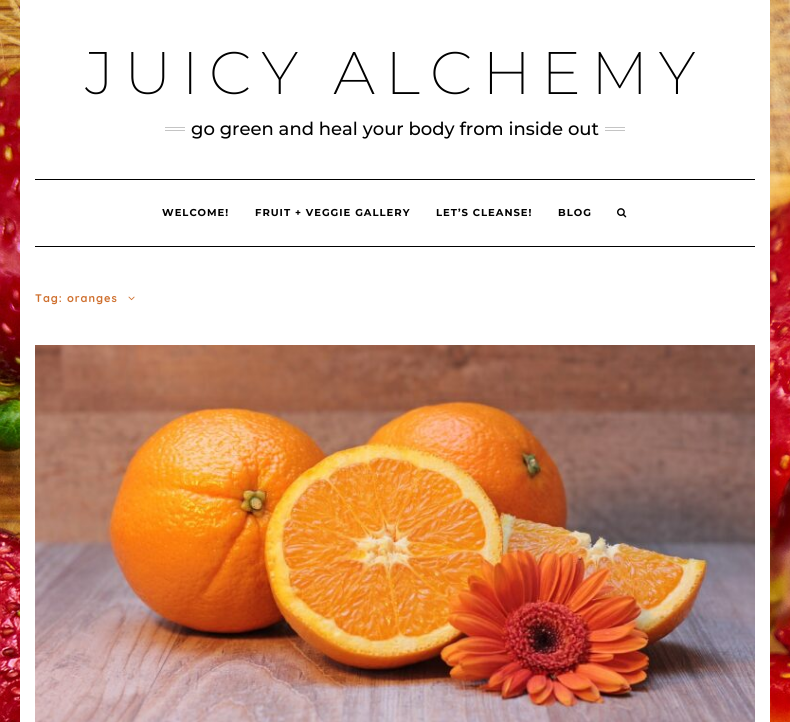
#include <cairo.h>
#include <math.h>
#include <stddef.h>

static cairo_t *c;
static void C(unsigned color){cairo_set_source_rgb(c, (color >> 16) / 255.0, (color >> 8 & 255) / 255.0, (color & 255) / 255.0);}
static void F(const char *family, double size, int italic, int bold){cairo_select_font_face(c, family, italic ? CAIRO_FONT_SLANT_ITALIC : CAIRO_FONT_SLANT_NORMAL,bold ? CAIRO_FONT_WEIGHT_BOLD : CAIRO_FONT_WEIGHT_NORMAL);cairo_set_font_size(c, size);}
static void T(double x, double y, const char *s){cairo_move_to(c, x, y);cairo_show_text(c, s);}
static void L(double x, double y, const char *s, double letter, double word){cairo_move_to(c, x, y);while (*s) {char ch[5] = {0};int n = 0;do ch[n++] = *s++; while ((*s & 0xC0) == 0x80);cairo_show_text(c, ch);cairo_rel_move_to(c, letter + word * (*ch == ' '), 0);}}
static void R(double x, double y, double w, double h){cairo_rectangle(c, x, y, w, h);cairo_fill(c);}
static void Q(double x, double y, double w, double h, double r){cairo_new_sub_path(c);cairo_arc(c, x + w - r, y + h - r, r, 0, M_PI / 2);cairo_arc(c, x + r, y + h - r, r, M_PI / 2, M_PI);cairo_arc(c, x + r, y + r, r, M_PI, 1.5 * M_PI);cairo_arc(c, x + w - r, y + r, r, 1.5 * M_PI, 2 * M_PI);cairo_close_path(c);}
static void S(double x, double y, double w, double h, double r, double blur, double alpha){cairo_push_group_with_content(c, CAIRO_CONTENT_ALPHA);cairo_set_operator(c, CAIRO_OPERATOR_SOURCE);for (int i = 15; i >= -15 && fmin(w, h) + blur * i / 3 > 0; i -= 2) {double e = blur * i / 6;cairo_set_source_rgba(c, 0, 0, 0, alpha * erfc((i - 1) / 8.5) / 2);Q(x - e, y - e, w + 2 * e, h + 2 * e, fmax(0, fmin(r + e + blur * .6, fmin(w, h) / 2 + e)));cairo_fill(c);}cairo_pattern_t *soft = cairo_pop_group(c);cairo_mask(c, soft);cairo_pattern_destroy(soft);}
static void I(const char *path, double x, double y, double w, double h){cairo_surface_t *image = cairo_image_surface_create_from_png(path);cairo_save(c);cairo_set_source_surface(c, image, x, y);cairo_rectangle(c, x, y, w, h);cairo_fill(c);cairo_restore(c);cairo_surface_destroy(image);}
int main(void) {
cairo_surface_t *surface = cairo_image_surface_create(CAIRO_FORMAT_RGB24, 790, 722);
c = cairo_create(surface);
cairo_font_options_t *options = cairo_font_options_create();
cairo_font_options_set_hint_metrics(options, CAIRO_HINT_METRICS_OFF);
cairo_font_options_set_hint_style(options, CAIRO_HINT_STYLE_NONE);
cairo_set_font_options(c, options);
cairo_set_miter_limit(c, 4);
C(0xffffff);
cairo_paint(c);
I("1.png",0,0,790,722);
C(0x000000);
S(20,0,750,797,0,25,.06);
C(0xffffff);
R(20,0,750,722);
F("Montserrat ExtraLight",60,0,0);
C(0x000000);
L(85,94,"JUICY ALCHEMY",10,0);
C(0xc4c4c4);
R(165,127,20,1);
R(165,130,20,1);
F("Montserrat Medium",18,0,0);
C(0x000000);
T(191,135,"go green and heal your body from inside out");
C(0xc4c4c4);
R(605,127,20,1);
R(605,130,20,1);
C(0x000000);
R(35,179,720,1);
R(35,246,720,1);
F("Montserrat",10,0,1);
L(162,216,"WELCOME!",1,0);
L(255,216,"FRUIT + VEGGIE GALLERY",1,0);
L(436,216,"LET’S CLEANSE!",1,0);
L(558,216,"BLOG",1,0);
I("2.png",617,208,10,10);
F("Quicksand",11,0,1);
C(0xcf702f);
L(35,302,"Tag: oranges",1,0);
I("3.png",128,296,7,5);
I("4.png",35,345,720,377);
cairo_surface_write_to_png(surface, "o.png");
cairo_font_options_destroy(options);
cairo_destroy(c);
cairo_surface_destroy(surface);
return 0;
}
